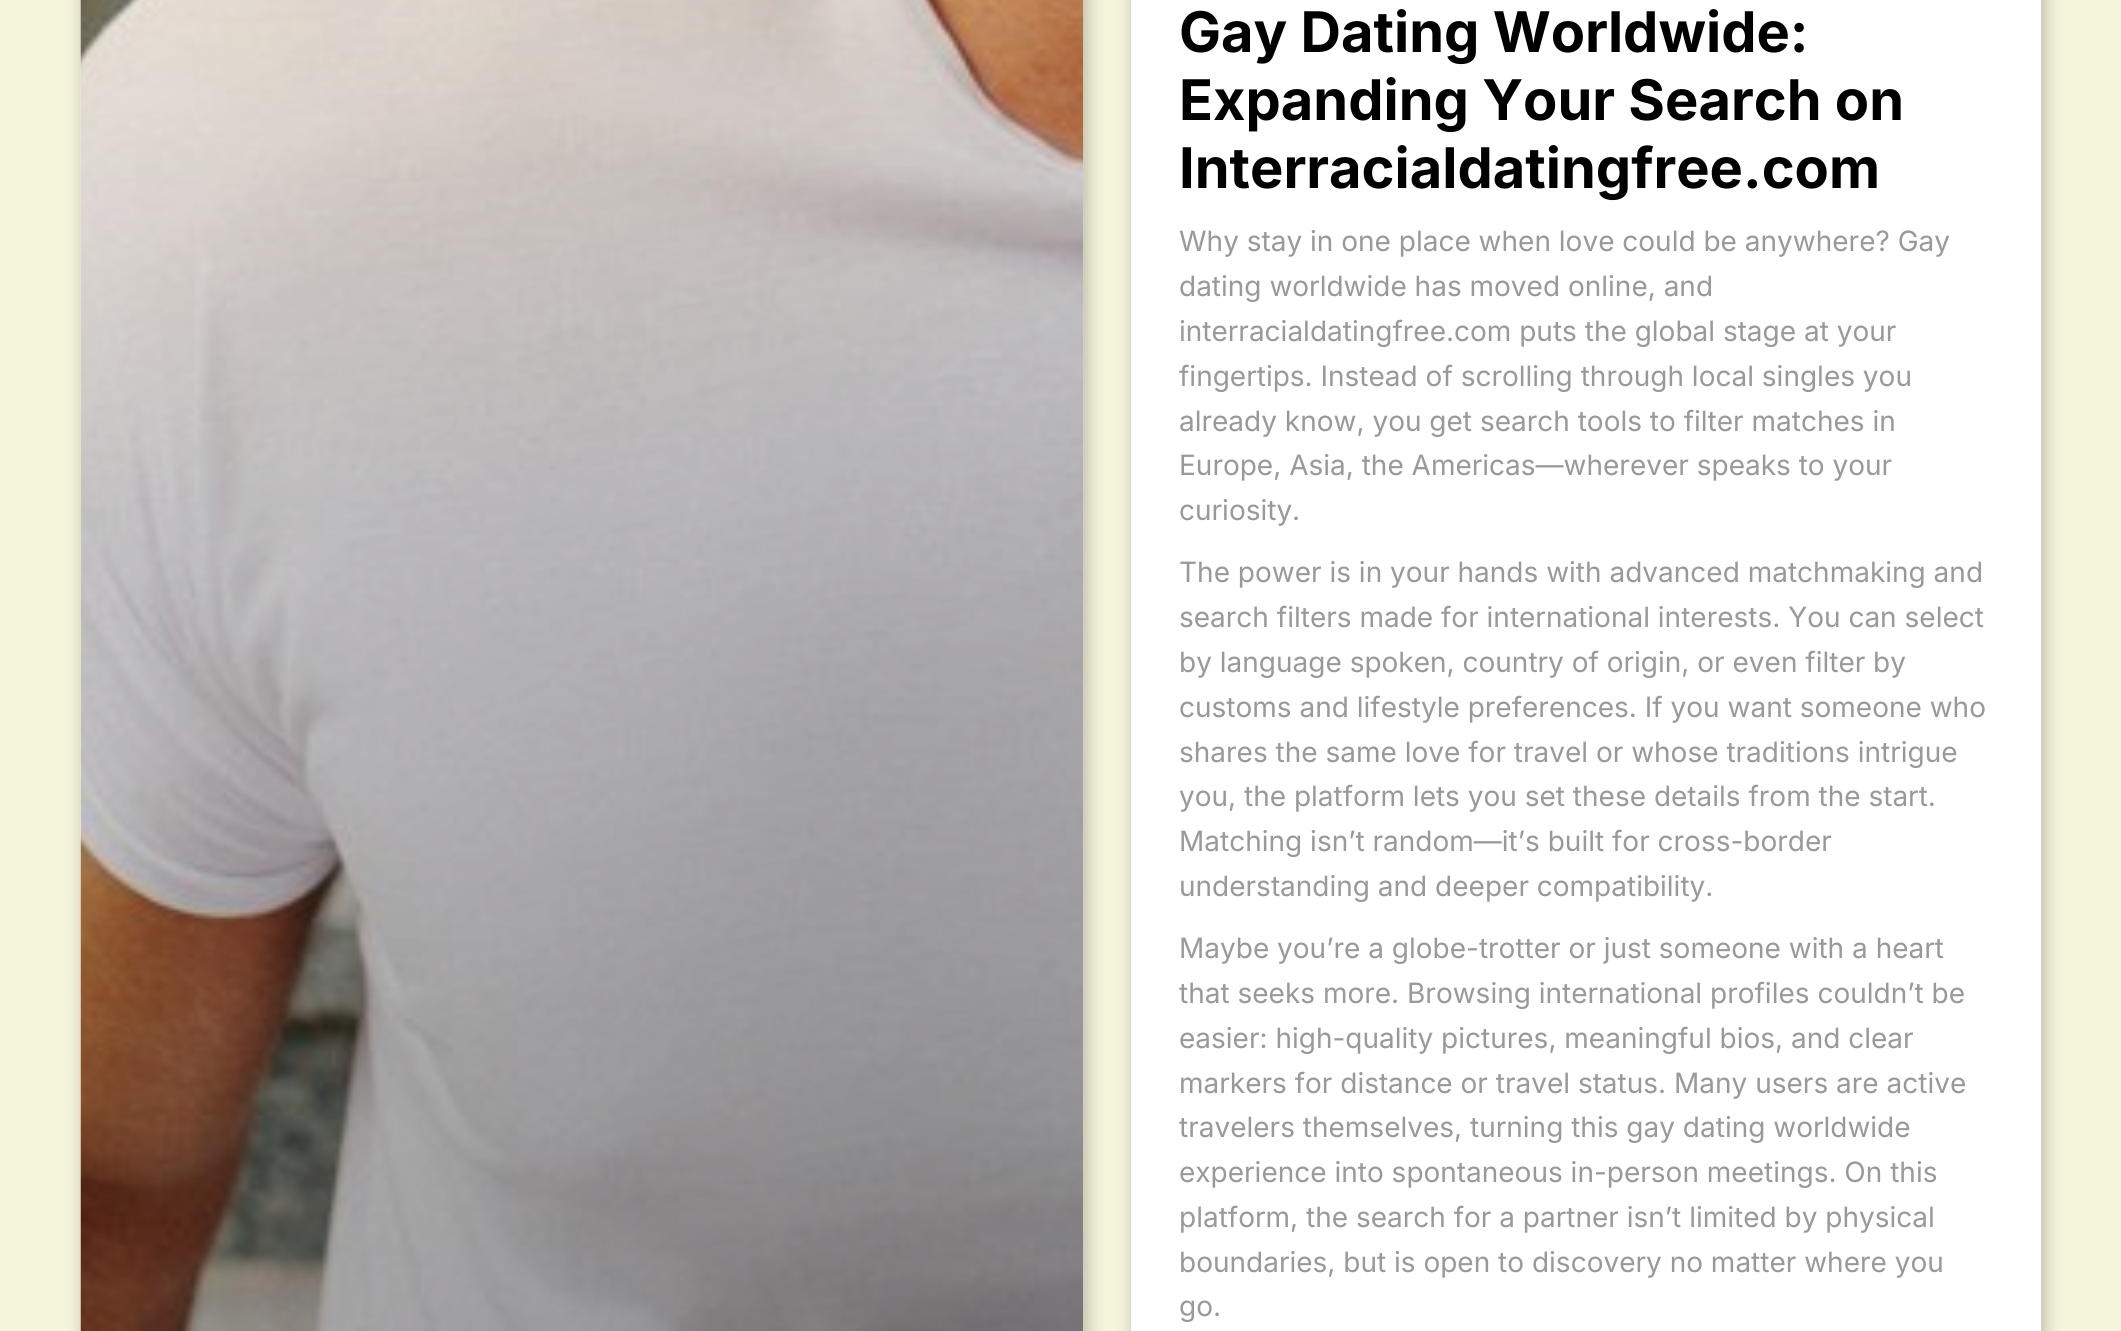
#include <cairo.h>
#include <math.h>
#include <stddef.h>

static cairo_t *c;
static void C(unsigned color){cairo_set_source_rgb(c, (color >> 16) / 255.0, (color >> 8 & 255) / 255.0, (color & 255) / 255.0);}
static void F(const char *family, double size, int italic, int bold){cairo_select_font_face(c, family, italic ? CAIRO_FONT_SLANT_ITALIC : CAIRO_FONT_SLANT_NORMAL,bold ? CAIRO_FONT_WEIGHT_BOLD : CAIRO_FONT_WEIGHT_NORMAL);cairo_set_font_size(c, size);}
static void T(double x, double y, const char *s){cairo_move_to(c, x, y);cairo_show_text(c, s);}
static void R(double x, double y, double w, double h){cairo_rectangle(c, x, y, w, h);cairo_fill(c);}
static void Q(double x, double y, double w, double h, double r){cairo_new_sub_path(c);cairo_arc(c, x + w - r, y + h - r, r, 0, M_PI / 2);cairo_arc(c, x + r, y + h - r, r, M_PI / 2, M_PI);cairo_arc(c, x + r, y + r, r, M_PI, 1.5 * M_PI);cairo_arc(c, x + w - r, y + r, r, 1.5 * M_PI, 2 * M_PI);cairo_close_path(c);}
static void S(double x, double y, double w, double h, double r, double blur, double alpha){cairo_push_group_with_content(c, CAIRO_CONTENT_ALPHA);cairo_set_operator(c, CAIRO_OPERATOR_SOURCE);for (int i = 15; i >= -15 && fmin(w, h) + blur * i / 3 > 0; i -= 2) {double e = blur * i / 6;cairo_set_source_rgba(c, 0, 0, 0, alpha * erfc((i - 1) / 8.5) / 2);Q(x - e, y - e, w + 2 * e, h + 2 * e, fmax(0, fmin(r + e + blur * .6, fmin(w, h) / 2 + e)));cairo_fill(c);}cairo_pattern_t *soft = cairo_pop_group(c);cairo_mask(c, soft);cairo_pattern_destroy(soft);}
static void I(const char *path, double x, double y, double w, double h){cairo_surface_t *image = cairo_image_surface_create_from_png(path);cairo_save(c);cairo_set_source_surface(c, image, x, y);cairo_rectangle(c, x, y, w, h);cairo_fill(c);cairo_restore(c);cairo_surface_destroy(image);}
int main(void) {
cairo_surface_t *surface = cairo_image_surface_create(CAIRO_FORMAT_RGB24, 2121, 1331);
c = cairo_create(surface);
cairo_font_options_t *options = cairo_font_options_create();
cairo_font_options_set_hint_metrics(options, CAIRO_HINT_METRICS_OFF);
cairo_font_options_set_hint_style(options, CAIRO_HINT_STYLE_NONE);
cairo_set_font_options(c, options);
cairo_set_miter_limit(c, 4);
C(0xf5f5dc);
cairo_paint(c);
C(0x000000);
S(84,-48,1003,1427,21,9,.25);
I("1.png",80,0,1004,1331);
S(1134,-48,910,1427,21,9,.25);
C(0xffffff);
R(1131,0,910,1331);
F("Inter",56,0,1);
C(0x000000);
T(1179,52,"Gay Dating Worldwide:");
T(1179,120,"Expanding Your Search on");
T(1179,188,"Interracialdatingfree.com");
F("Inter",28,0,0);
C(0x999999);
T(1179,251,"Why stay in one place when love could be anywhere? Gay");
T(1179,296,"dating worldwide has moved online, and");
T(1179,341,"interracialdatingfree.com puts the global stage at your");
T(1179,386,"fingertips. Instead of scrolling through local singles you");
T(1179,431,"already know, you get search tools to filter matches in");
T(1179,475,"Europe, Asia, the Americas—wherever speaks to your");
T(1179,520,"curiosity.");
T(1179,582,"The power is in your hands with advanced matchmaking and");
T(1179,627,"search filters made for international interests. You can select");
T(1179,672,"by language spoken, country of origin, or even filter by");
T(1179,717,"customs and lifestyle preferences. If you want someone who");
T(1179,762,"shares the same love for travel or whose traditions intrigue");
T(1179,806,"you, the platform lets you set these details from the start.");
T(1179,851,"Matching isn’t random—it’s built for cross-border");
T(1179,896,"understanding and deeper compatibility.");
T(1179,958,"Maybe you’re a globe-trotter or just someone with a heart");
T(1179,1003,"that seeks more. Browsing international profiles couldn’t be");
T(1179,1048,"easier: high-quality pictures, meaningful bios, and clear");
T(1179,1093,"markers for distance or travel status. Many users are active");
T(1179,1137,"travelers themselves, turning this gay dating worldwide");
T(1179,1182,"experience into spontaneous in-person meetings. On this");
T(1179,1227,"platform, the search for a partner isn’t limited by physical");
T(1179,1272,"boundaries, but is open to discovery no matter where you");
T(1179,1316,"go.");
cairo_surface_write_to_png(surface, "o.png");
cairo_font_options_destroy(options);
cairo_destroy(c);
cairo_surface_destroy(surface);
return 0;
}
